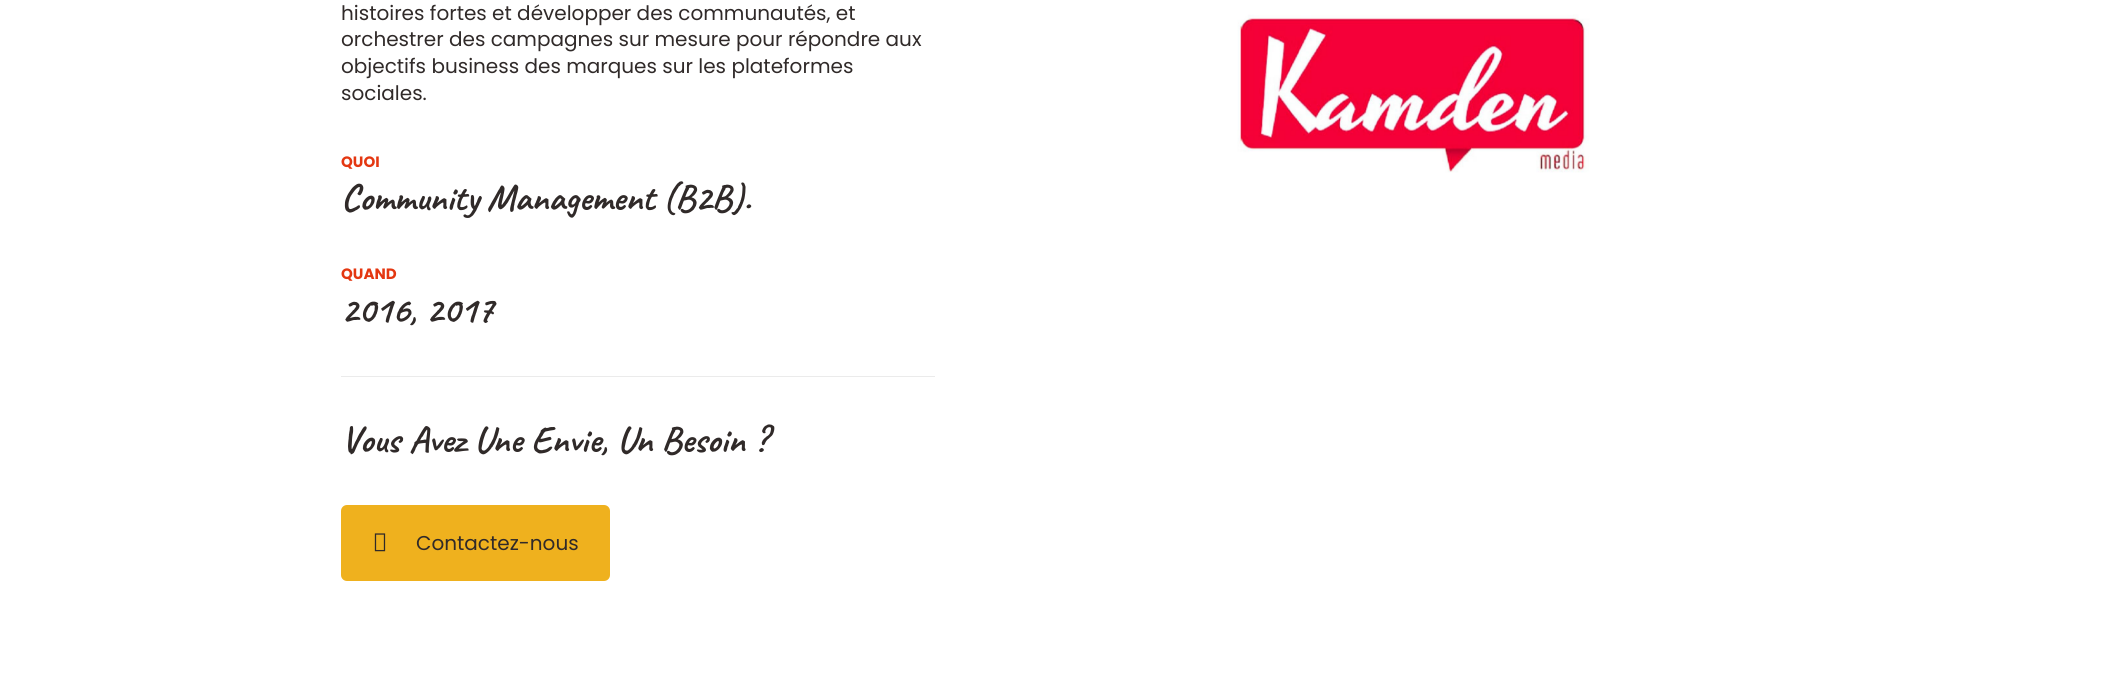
#include <cairo.h>
#include <math.h>
#include <stddef.h>

static cairo_t *c;
static void C(unsigned color){cairo_set_source_rgb(c, (color >> 16) / 255.0, (color >> 8 & 255) / 255.0, (color & 255) / 255.0);}
static void F(const char *family, double size, int italic, int bold){cairo_select_font_face(c, family, italic ? CAIRO_FONT_SLANT_ITALIC : CAIRO_FONT_SLANT_NORMAL,bold ? CAIRO_FONT_WEIGHT_BOLD : CAIRO_FONT_WEIGHT_NORMAL);cairo_set_font_size(c, size);}
static void T(double x, double y, const char *s){cairo_move_to(c, x, y);cairo_show_text(c, s);}
static void L(double x, double y, const char *s, double letter, double word){cairo_move_to(c, x, y);while (*s) {char ch[5] = {0};int n = 0;do ch[n++] = *s++; while ((*s & 0xC0) == 0x80);cairo_show_text(c, ch);cairo_rel_move_to(c, letter + word * (*ch == ' '), 0);}}
static void R(double x, double y, double w, double h){cairo_rectangle(c, x, y, w, h);cairo_fill(c);}
static void Q(double x, double y, double w, double h, double r){cairo_new_sub_path(c);cairo_arc(c, x + w - r, y + h - r, r, 0, M_PI / 2);cairo_arc(c, x + r, y + h - r, r, M_PI / 2, M_PI);cairo_arc(c, x + r, y + r, r, M_PI, 1.5 * M_PI);cairo_arc(c, x + w - r, y + r, r, 1.5 * M_PI, 2 * M_PI);cairo_close_path(c);}
static void I(const char *path, double x, double y, double w, double h){cairo_surface_t *image = cairo_image_surface_create_from_png(path);cairo_save(c);cairo_set_source_surface(c, image, x, y);cairo_rectangle(c, x, y, w, h);cairo_fill(c);cairo_restore(c);cairo_surface_destroy(image);}
int main(void) {
cairo_surface_t *surface = cairo_image_surface_create(CAIRO_FORMAT_RGB24, 2106, 673);
c = cairo_create(surface);
cairo_font_options_t *options = cairo_font_options_create();
cairo_font_options_set_hint_metrics(options, CAIRO_HINT_METRICS_OFF);
cairo_font_options_set_hint_style(options, CAIRO_HINT_STYLE_NONE);
cairo_set_font_options(c, options);
cairo_set_miter_limit(c, 4);
C(0xffffff);
cairo_paint(c);
F("Poppins",20,0,0);
C(0x302a29);
T(341,20,"histoires fortes et développer des communautés, et");
T(341,46,"orchestrer des campagnes sur mesure pour répondre aux");
T(341,73,"objectifs business des marques sur les plateformes");
T(341,100,"sociales.");
F("Poppins",15,0,1);
C(0xe43711);
T(341,167,"QUOI");
F("Caveat",37.5,0,1);
C(0x302a29);
L(341,210,"Community Management (B2B).",0,-1);
F("Poppins",15,0,1);
C(0xe43711);
T(341,279,"QUAND");
F("Caveat",37.5,0,1);
C(0x302a29);
T(341,322,"2016, 2017");
C(0xebebeb);
R(341,376,594,1);
C(0x302a29);
T(341,452,"Vous Avez Une Envie, Un Besoin ?");
C(0xefb11e);
Q(341,505,269,76,6);
cairo_fill(c);
I("1.png",374,533,12,19);
F("Poppins",20,0,0);
C(0x302a29);
T(416,550,"Contactez-nous");
I("2.png",1054,0,712,390);
cairo_surface_write_to_png(surface, "o.png");
cairo_font_options_destroy(options);
cairo_destroy(c);
cairo_surface_destroy(surface);
return 0;
}
